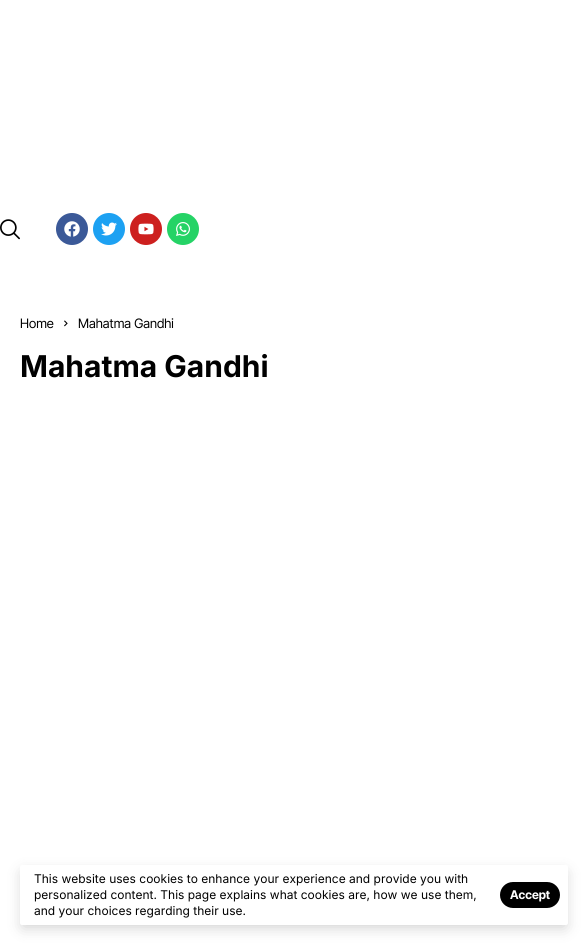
#include <cairo.h>
#include <math.h>
#include <stddef.h>

static cairo_t *c;
static void C(unsigned color){cairo_set_source_rgb(c, (color >> 16) / 255.0, (color >> 8 & 255) / 255.0, (color & 255) / 255.0);}
static void F(const char *family, double size, int italic, int bold){cairo_select_font_face(c, family, italic ? CAIRO_FONT_SLANT_ITALIC : CAIRO_FONT_SLANT_NORMAL,bold ? CAIRO_FONT_WEIGHT_BOLD : CAIRO_FONT_WEIGHT_NORMAL);cairo_set_font_size(c, size);}
static void T(double x, double y, const char *s){cairo_move_to(c, x, y);cairo_show_text(c, s);}
static void Q(double x, double y, double w, double h, double r){cairo_new_sub_path(c);cairo_arc(c, x + w - r, y + h - r, r, 0, M_PI / 2);cairo_arc(c, x + r, y + h - r, r, M_PI / 2, M_PI);cairo_arc(c, x + r, y + r, r, M_PI, 1.5 * M_PI);cairo_arc(c, x + w - r, y + r, r, 1.5 * M_PI, 2 * M_PI);cairo_close_path(c);}
static void S(double x, double y, double w, double h, double r, double blur, double alpha){cairo_push_group_with_content(c, CAIRO_CONTENT_ALPHA);cairo_set_operator(c, CAIRO_OPERATOR_SOURCE);for (int i = 15; i >= -15 && fmin(w, h) + blur * i / 3 > 0; i -= 2) {double e = blur * i / 6;cairo_set_source_rgba(c, 0, 0, 0, alpha * erfc((i - 1) / 8.5) / 2);Q(x - e, y - e, w + 2 * e, h + 2 * e, fmax(0, fmin(r + e + blur * .6, fmin(w, h) / 2 + e)));cairo_fill(c);}cairo_pattern_t *soft = cairo_pop_group(c);cairo_mask(c, soft);cairo_pattern_destroy(soft);}
static void I(const char *path, double x, double y, double w, double h){cairo_surface_t *image = cairo_image_surface_create_from_png(path);cairo_save(c);cairo_set_source_surface(c, image, x, y);cairo_rectangle(c, x, y, w, h);cairo_fill(c);cairo_restore(c);cairo_surface_destroy(image);}
int main(void) {
cairo_surface_t *surface = cairo_image_surface_create(CAIRO_FORMAT_RGB24, 588, 945);
c = cairo_create(surface);
cairo_font_options_t *options = cairo_font_options_create();
cairo_font_options_set_hint_metrics(options, CAIRO_HINT_METRICS_OFF);
cairo_font_options_set_hint_style(options, CAIRO_HINT_STYLE_NONE);
cairo_set_font_options(c, options);
cairo_set_miter_limit(c, 4);
C(0xffffff);
cairo_paint(c);
I("1.png",0,219,20,21);
C(0x3b5998);
cairo_arc(c,72,229,16,0,2 * M_PI);
cairo_fill(c);
I("2.png",64,221,16,16);
C(0x1da1f2);
cairo_arc(c,109,229,16,0,2 * M_PI);
cairo_fill(c);
I("3.png",101,222,16,14);
C(0xcd201f);
cairo_arc(c,146,229,16,0,2 * M_PI);
cairo_fill(c);
I("4.png",138,223,16,12);
C(0x25d366);
cairo_arc(c,183,229,16,0,2 * M_PI);
cairo_fill(c);
I("5.png",176,222,14,14);
F("Inter Tight",13,0,0);
C(0x000000);
T(20,328,"Home");
I("6.png",64,320,4,7);
T(78,328,"Mahatma Gandhi");
F("Inter",30,0,1);
T(20,377,"Mahatma Gandhi");
C(0x000000);
S(23,873,542,54,0,7.5,.2);
C(0xffffff);
Q(20,865,548,60,2);
cairo_fill(c);
F("Inter",12,0,0);
C(0x000000);
T(34,883,"This website uses cookies to enhance your experience and provide you with");
T(34,899,"personalized content. This page explains what cookies are, how we use them,");
T(34,915,"and your choices regarding their use.");
Q(500,882,60,26,13);
cairo_fill(c);
F("Inter Tight",12,0,1);
C(0xffffff);
T(510,899,"Accept");
cairo_surface_write_to_png(surface, "o.png");
cairo_font_options_destroy(options);
cairo_destroy(c);
cairo_surface_destroy(surface);
return 0;
}
